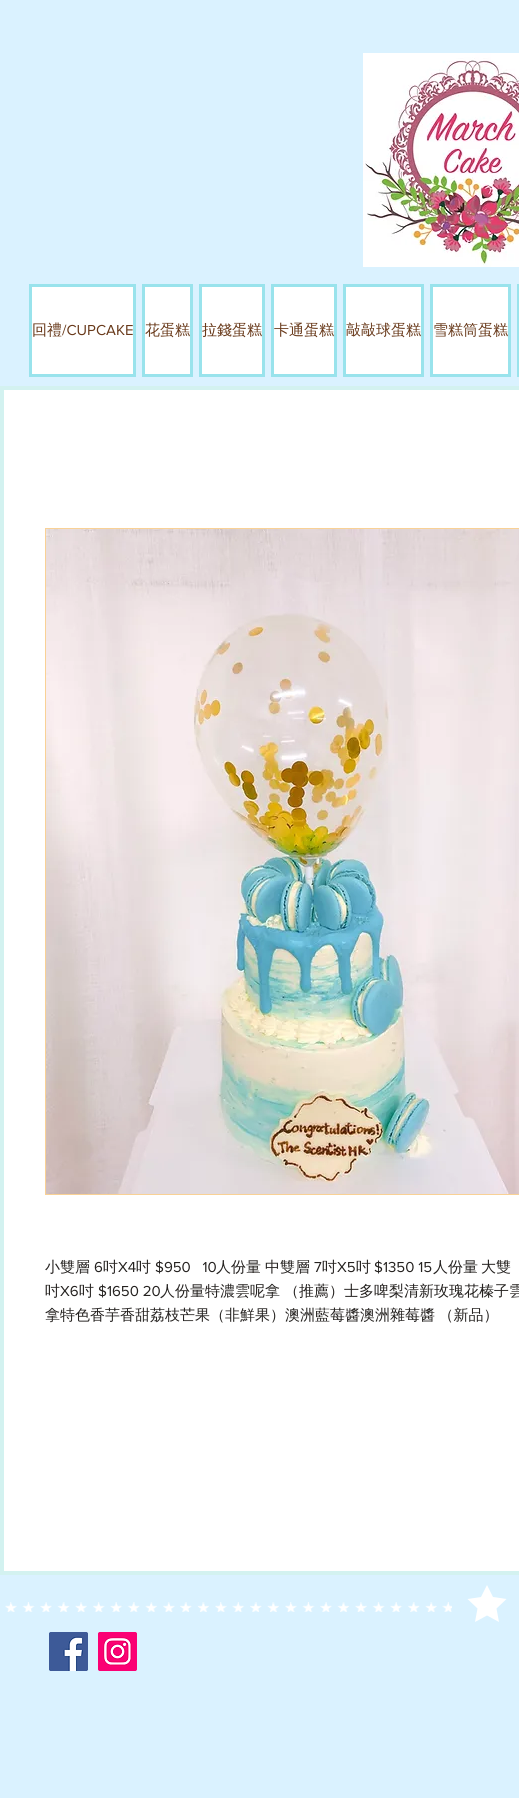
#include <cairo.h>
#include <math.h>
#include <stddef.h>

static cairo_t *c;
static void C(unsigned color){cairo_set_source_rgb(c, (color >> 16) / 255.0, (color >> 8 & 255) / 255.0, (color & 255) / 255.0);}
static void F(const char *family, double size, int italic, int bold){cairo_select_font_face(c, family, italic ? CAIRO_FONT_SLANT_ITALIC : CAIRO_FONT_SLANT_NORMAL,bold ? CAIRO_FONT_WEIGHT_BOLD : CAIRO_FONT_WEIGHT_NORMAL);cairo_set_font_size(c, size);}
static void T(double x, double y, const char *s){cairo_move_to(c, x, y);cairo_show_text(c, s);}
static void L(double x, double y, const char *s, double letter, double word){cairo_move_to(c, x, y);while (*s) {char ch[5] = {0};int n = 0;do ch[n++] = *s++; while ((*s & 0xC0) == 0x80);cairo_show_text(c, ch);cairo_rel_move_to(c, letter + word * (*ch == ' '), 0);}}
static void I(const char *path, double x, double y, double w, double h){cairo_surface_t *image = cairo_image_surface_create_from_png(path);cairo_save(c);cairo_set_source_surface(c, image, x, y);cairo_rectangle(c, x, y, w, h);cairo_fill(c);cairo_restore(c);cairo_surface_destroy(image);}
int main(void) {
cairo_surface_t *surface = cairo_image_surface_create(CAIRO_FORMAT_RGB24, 519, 1798);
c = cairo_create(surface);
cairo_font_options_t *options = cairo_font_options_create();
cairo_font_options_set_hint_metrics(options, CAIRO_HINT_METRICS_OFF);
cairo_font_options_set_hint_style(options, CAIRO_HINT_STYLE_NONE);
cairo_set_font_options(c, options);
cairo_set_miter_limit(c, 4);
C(0xdaf2ff);
cairo_paint(c);
I("1.png",363,53,156,214);
C(0xffffff);
cairo_rectangle(c,30.5,285.5,104,90);
cairo_fill_preserve(c);
C(0x99e3ec);
cairo_set_line_width(c,3);
cairo_stroke(c);
F("WenQuanYi Zen Hei Medium",15,0,0);
C(0x68391a);
T(32,335,"回禮");
F("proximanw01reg",15,0,0);
T(62,335,"/CUPCAKE");
C(0xffffff);
cairo_rectangle(c,143.5,285.5,48,90);
cairo_fill_preserve(c);
C(0x99e3ec);
cairo_stroke(c);
F("WenQuanYi Zen Hei Medium",15,0,0);
C(0x68391a);
T(145,335,"花蛋糕");
C(0xffffff);
cairo_rectangle(c,200.5,285.5,63,90);
cairo_fill_preserve(c);
C(0x99e3ec);
cairo_stroke(c);
C(0x68391a);
T(202,335,"拉錢蛋糕");
C(0xffffff);
cairo_rectangle(c,272.5,285.5,63,90);
cairo_fill_preserve(c);
C(0x99e3ec);
cairo_stroke(c);
C(0x68391a);
T(274,335,"卡通蛋糕");
C(0xffffff);
cairo_rectangle(c,344.5,285.5,78,90);
cairo_fill_preserve(c);
C(0x99e3ec);
cairo_stroke(c);
C(0x68391a);
T(346,335,"敲敲球蛋糕");
C(0xffffff);
cairo_rectangle(c,431.5,285.5,78,90);
cairo_fill_preserve(c);
C(0x99e3ec);
cairo_stroke(c);
C(0x68391a);
T(433,335,"雪糕筒蛋糕");
cairo_rectangle(c,518.5,285.5,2,90);
C(0x99e3ec);
cairo_stroke(c);
C(0xffffff);
cairo_rectangle(c,2,388,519,1185);
cairo_fill_preserve(c);
C(0xd3f2f0);
cairo_set_line_width(c,4);
cairo_stroke(c);
cairo_rectangle(c,45.5,528.5,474,666);
C(0xf9d195);
cairo_set_line_width(c,1);
cairo_stroke(c);
I("2.png",46,529,473,665);
C(0x24211f);
T(45,1272,"小雙層");
F("proximanw01reg",15,0,0);
T(94,1272,"6");
F("WenQuanYi Zen Hei Medium",15,0,0);
T(103,1272,"吋");
F("proximanw01reg",15,0,0);
T(118,1272,"X4");
F("WenQuanYi Zen Hei Medium",15,0,0);
T(136,1272,"吋");
F("proximanw01reg",15,0,0);
T(155,1272,"$950   10");
F("WenQuanYi Zen Hei Medium",15,0,0);
T(216,1272,"人份量");
T(265,1272,"中雙層");
F("proximanw01reg",15,0,0);
T(314,1272,"7");
F("WenQuanYi Zen Hei Medium",15,0,0);
T(322,1272,"吋");
F("proximanw01reg",15,0,0);
T(337,1272,"X5");
F("WenQuanYi Zen Hei Medium",15,0,0);
T(356,1272,"吋");
F("proximanw01reg",15,0,0);
T(374,1272,"$1350 15");
F("WenQuanYi Zen Hei Medium",15,0,0);
T(433,1272,"人份量");
T(481,1272,"大雙");
T(45,1296,"吋");
F("proximanw01reg",15,0,0);
T(60,1296,"X6");
F("WenQuanYi Zen Hei Medium",15,0,0);
T(79,1296,"吋");
F("proximanw01reg",15,0,0);
T(98,1296,"$1650 20");
F("WenQuanYi Zen Hei Medium",15,0,0);
T(160,1296,"人份量特濃雲呢拿");
T(284,1296,"（推薦）士多啤梨清新玫瑰花榛子雲");
L(45,1320,"拿特色香芋香甜荔枝芒果（非鮮果）澳洲藍莓醬澳洲雜莓醬 （新品）",0,-1);
I("3.png",5,1602,447,10);
C(0xffffff);
cairo_new_path(c);
cairo_move_to(c,487,1585);
cairo_line_to(c,493,1597);
cairo_line_to(c,506.5,1599);
cairo_line_to(c,496.5,1608.5);
cairo_line_to(c,499,1622);
cairo_line_to(c,487,1615.5);
cairo_line_to(c,475,1622);
cairo_line_to(c,477.5,1608.5);
cairo_line_to(c,467.5,1599);
cairo_line_to(c,481,1597);
cairo_close_path(c);
cairo_fill(c);
I("4.png",49,1632,39,39);
I("5.png",98,1632,39,39);
cairo_surface_write_to_png(surface, "o.png");
cairo_font_options_destroy(options);
cairo_destroy(c);
cairo_surface_destroy(surface);
return 0;
}
